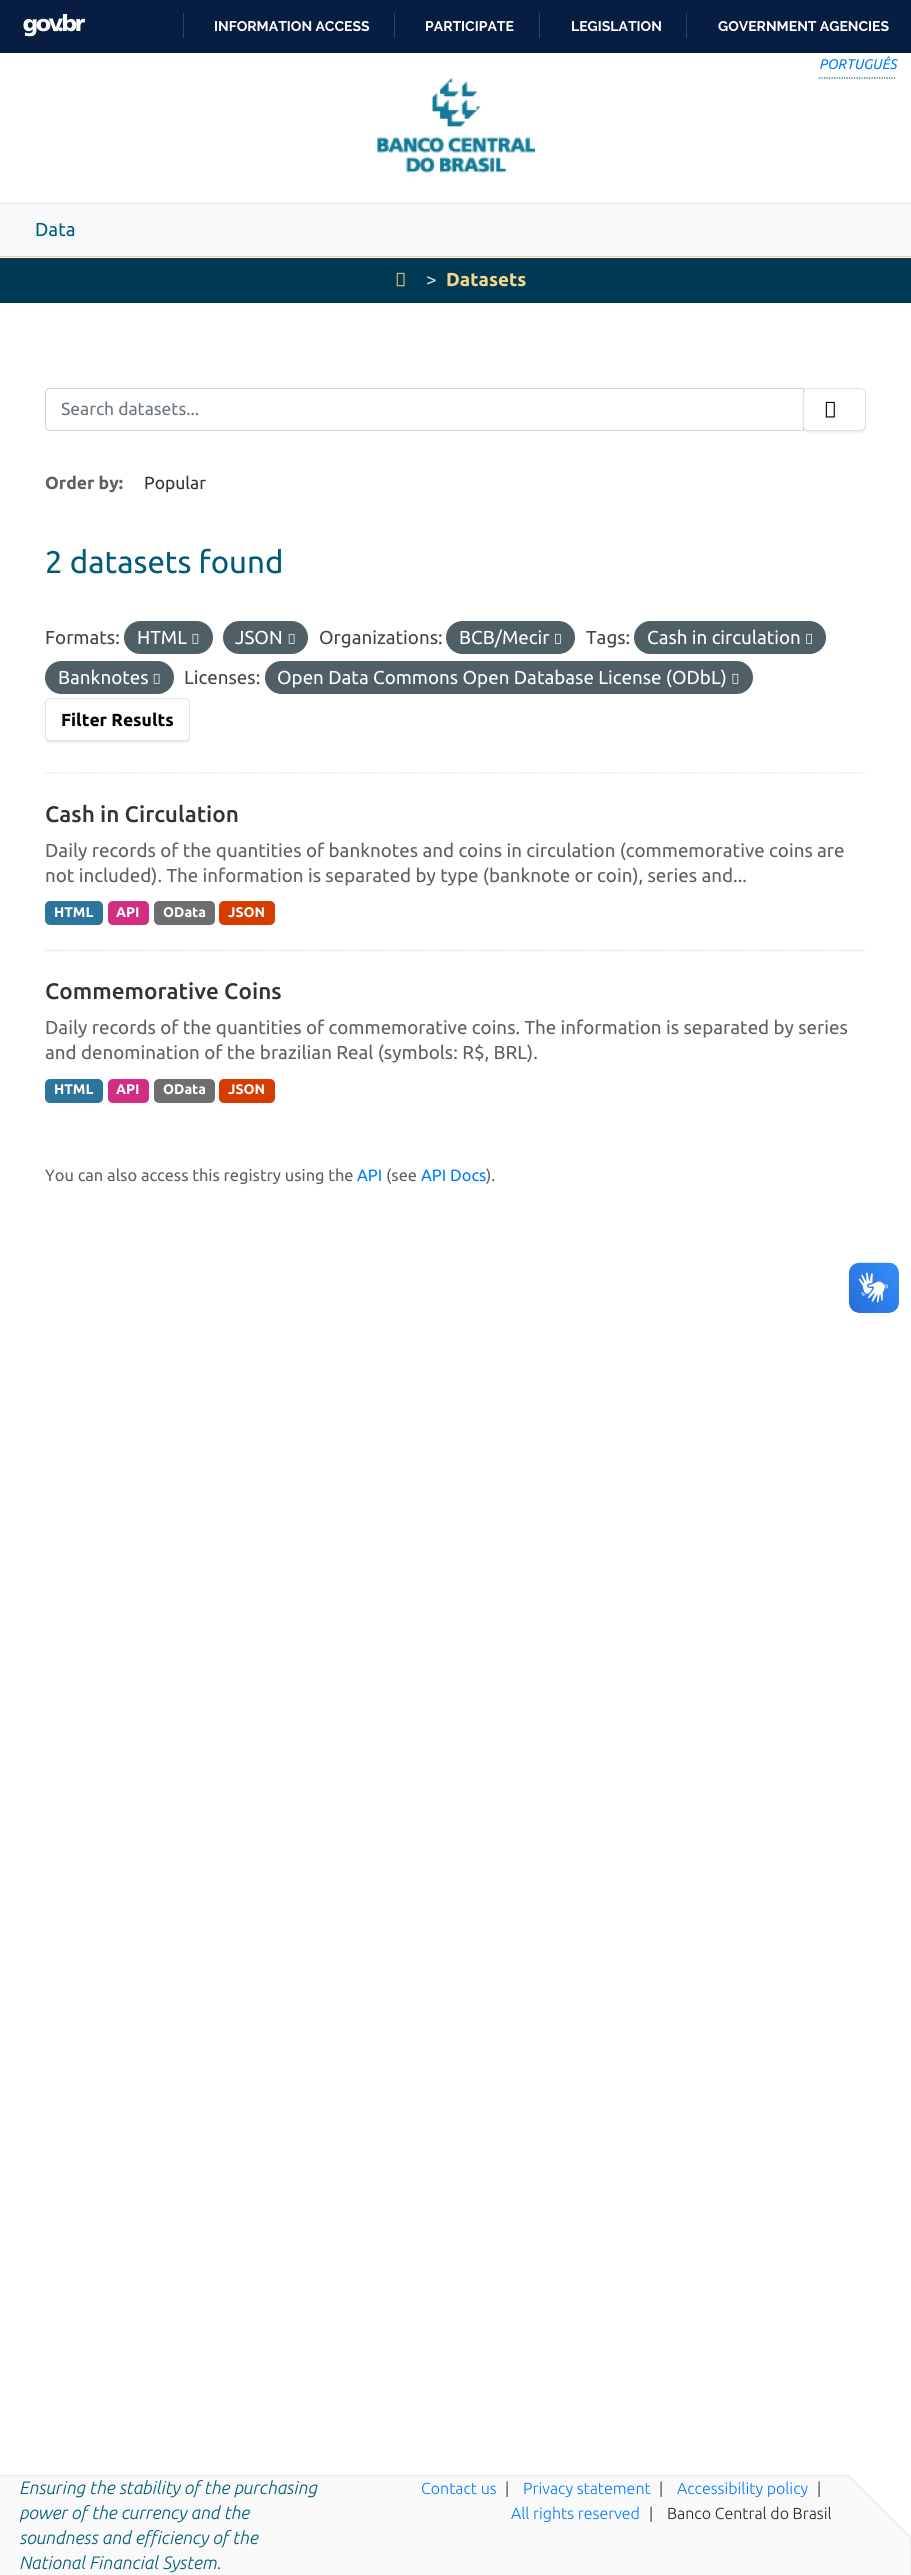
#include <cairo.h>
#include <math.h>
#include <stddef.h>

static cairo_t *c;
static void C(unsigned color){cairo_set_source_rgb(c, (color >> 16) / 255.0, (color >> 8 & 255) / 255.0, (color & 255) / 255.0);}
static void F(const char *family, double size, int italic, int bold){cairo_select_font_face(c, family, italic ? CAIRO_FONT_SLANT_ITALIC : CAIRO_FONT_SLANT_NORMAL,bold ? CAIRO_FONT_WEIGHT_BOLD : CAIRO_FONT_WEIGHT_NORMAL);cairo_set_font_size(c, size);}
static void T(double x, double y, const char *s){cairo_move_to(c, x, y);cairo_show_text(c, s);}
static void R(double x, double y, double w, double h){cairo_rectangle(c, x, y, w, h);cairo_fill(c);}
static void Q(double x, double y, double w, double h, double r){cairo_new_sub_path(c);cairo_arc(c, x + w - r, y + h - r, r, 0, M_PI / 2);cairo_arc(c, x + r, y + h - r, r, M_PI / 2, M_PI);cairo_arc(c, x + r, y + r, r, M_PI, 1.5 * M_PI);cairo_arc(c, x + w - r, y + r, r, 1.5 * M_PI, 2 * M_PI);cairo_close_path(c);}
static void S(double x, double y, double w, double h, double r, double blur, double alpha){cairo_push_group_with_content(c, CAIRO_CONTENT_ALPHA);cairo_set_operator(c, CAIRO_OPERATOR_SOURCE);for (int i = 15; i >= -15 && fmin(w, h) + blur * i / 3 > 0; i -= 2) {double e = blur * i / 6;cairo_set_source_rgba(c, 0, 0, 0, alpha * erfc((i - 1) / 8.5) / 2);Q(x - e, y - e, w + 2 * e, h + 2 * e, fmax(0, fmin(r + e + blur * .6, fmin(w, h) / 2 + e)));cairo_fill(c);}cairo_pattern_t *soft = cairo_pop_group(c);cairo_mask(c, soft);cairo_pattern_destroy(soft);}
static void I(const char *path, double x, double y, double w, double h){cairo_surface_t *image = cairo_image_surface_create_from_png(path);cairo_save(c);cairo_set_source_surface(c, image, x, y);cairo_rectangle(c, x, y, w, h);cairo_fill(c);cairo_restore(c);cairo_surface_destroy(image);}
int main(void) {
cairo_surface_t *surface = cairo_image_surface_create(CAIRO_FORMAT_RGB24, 911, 2575);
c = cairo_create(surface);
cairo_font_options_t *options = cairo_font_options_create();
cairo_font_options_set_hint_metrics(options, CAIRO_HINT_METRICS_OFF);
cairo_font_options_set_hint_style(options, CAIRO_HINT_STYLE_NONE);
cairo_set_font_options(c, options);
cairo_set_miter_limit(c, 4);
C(0xffffff);
cairo_paint(c);
C(0x071d41);
R(0,0,911,53);
I("1.png",23,14,62,23);
C(0x32425b);
R(183,13,1,25);
F("Raleway",14,0,1);
C(0xffffff);
T(214,31,"INFORMATION ACCESS");
C(0x32425b);
R(394,13,1,25);
C(0xffffff);
T(425,31,"PARTICIPATE");
C(0x32425b);
R(539,13,1,25);
C(0xffffff);
T(571,31,"LEGISLATION");
C(0x32425b);
R(686,13,1,25);
C(0xffffff);
T(718,31,"GOVERNMENT AGENCIES");
cairo_new_path(c);
cairo_move_to(c,819,78);
cairo_line_to(c,896,78);
C(0x025c75);
cairo_set_line_width(c,1.2);
cairo_set_dash(c,(double[]){1.25,1.25},2,0);
cairo_stroke(c);
F("Ubuntu",14,1,0);
C(0x007bff);
T(819,69,"PORTUGUÊS");
I("2.png",377,77,158,96);
C(0xf8f9fa);
R(0,204,911,54);
C(0xeaeaea);
R(0,203,911,1);
C(0xedd297);
R(0,256,911,1);
F("Ubuntu",18.75,0,0);
C(0x005c7a);
T(35,236,"Data");
C(0x003954);
R(0,258,911,45);
I("3.png",396,272,9,15);
C(0xccd7dd);
T(426,286,">");
F("Ubuntu",18.75,0,1);
C(0xf8d48d);
T(446,286,"Datasets");
cairo_new_path(c);
cairo_move_to(c,45,773);
cairo_line_to(c,866,773);
C(0xdddddd);
cairo_stroke(c);
cairo_new_path(c);
cairo_move_to(c,50,388.5);
cairo_line_to(c,803.5,388.5);
cairo_line_to(c,803.5,430.5);
cairo_line_to(c,50,430.5);
cairo_curve_to(c,47.5,430.5,45.5,428.5,45.5,426);
cairo_line_to(c,45.5,393);
cairo_curve_to(c,45.5,390.5,47.5,388.5,50,388.5);
cairo_close_path(c);
C(0xced4da);
cairo_set_line_width(c,1);
cairo_set_dash(c,NULL,0,0);
cairo_stroke(c);
F("Ubuntu",17.5,0,0);
C(0x6c757d);
T(61,415,"Search datasets...");
C(0x000000);
S(803,389,63,44,6,.5,.07);
C(0xffffff);
Q(803.5,388.5,62,42,5.5);
cairo_fill_preserve(c);
C(0xdee2e6);
cairo_stroke(c);
I("4.png",825,401,10,17);
F("Ubuntu",17.5,0,1);
C(0x606060);
T(45,489,"Order by:");
F("Ubuntu",17.5,0,0);
C(0x333333);
T(144,489,"Popular");
F("Ubuntu",31.25,0,0);
C(0x005c7a);
T(45,573,"2 datasets found");
F("Ubuntu",18.75,0,0);
C(0x444444);
T(45,644,"Formats:");
C(0x4e5f65);
Q(124,621,89,33,16.5);
cairo_fill(c);
C(0xffffff);
T(137,644,"HTML");
I("5.png",192,633,7,11);
C(0x4e5f65);
Q(223,621,85,33,16.5);
cairo_fill(c);
C(0xffffff);
T(235,644,"JSON");
I("6.png",288,633,7,11);
C(0x444444);
T(319,644,"Organizations:");
C(0x4e5f65);
Q(446,621,129,33,16.5);
cairo_fill(c);
C(0xffffff);
T(459,644,"BCB/Mecir");
I("7.png",555,633,6,11);
C(0x444444);
T(586,644,"Tags:");
C(0x4e5f65);
Q(634,621,192,33,16.5);
cairo_fill(c);
C(0xffffff);
T(647,644,"Cash in circulation");
I("8.png",806,633,6,11);
C(0x4e5f65);
Q(45,661,129,33,16.5);
cairo_fill(c);
C(0xffffff);
T(58,684,"Banknotes");
I("6.png",153,673,7,11);
C(0x444444);
T(184,684,"Licenses:");
C(0x4e5f65);
Q(265,661,488,33,16.5);
cairo_fill(c);
C(0xffffff);
T(277,684,"Open Data Commons Open Database License (ODbL)");
I("5.png",732,673,7,11);
C(0x000000);
S(45,699,145,44,5,.5,.07);
C(0xffffff);
Q(45.5,698.5,144,42,4.5);
cairo_fill_preserve(c);
C(0xdee2e6);
cairo_stroke(c);
F("Ubuntu",17.5,0,1);
C(0x000000);
T(61,726,"Filter Results");
cairo_new_path(c);
cairo_move_to(c,45,950.5);
cairo_line_to(c,866,950.5);
C(0xdddddd);
cairo_set_line_width(c,1.2);
cairo_set_dash(c,(double[]){1.25,1.25},2,0);
cairo_stroke(c);
F("Ubuntu Medium",22.5,0,0);
C(0x333333);
T(45,822,"Cash in Circulation");
F("Ubuntu",18.75,0,0);
C(0x606060);
T(45,857,"Daily records of the quantities of banknotes and coins in circulation (commemorative coins are");
T(45,882,"not included). The information is separated by type (banknote or coin), series and...");
C(0x2e759e);
Q(45,901,58,24,5);
cairo_fill(c);
F("Ubuntu",14,0,1);
C(0xffffff);
T(54,917,"HTML");
C(0xd22d81);
Q(108,901,41,24,5);
cairo_fill(c);
C(0xffffff);
T(116,917,"API");
C(0x6e6e6e);
Q(154,901,61,24,5);
cairo_fill(c);
C(0xffffff);
T(163,917,"OData");
C(0xd63b00);
Q(219,901,56,24,5);
cairo_fill(c);
C(0xffffff);
T(228,917,"JSON");
F("Ubuntu Medium",22.5,0,0);
C(0x333333);
T(45,999,"Commemorative Coins");
F("Ubuntu",18.75,0,0);
C(0x606060);
T(45,1034,"Daily records of the quantities of commemorative coins. The information is separated by series");
T(45,1059,"and denomination of the brazilian Real (symbols: R$, BRL).");
C(0x2e759e);
Q(45,1079,58,24,5);
cairo_fill(c);
F("Ubuntu",14,0,1);
C(0xffffff);
T(54,1094,"HTML");
C(0xd22d81);
Q(108,1079,41,24,5);
cairo_fill(c);
C(0xffffff);
T(116,1094,"API");
C(0x6e6e6e);
Q(154,1079,61,24,5);
cairo_fill(c);
C(0xffffff);
T(163,1094,"OData");
C(0xd63b00);
Q(219,1079,56,24,5);
cairo_fill(c);
C(0xffffff);
T(228,1094,"JSON");
F("Ubuntu",16.4,0,0);
C(0x606060);
T(45,1181,"You can also access this registry using the");
C(0x007bff);
T(357,1181,"API");
C(0x606060);
T(386,1181,"(see");
C(0x007bff);
T(421,1181,"API Docs");
C(0x606060);
T(486,1181,").");
I("9.png",848,1262,51,51);
I("10.png",849,1263,50,50);
C(0xf9f9f9);
R(0,2476,910,99);
C(0xe9ecef);
R(0,2475,850,1);
R(910,2537,1,38);
C(0xffffff);
cairo_new_path(c);
cairo_move_to(c,849,2475);
cairo_line_to(c,911,2475);
cairo_line_to(c,911,2538);
cairo_close_path(c);
cairo_fill(c);
C(0xe9ecef);
cairo_new_path(c);
cairo_move_to(c,848,2476);
cairo_line_to(c,849,2475);
cairo_line_to(c,911,2537);
cairo_line_to(c,910,2538);
cairo_close_path(c);
cairo_fill(c);
F("Ubuntu Light",18,1,0);
C(0x005c7a);
T(19,2494,"Ensuring the stability of the purchasing");
T(19,2519,"power of the currency and the");
T(19,2544,"soundness and efficiency of the");
T(19,2569,"National Financial System.");
F("Ubuntu Light",16,0,0);
C(0x007bff);
T(421,2494,"Contact us");
C(0x212529);
T(505,2494,"|");
C(0x007bff);
T(523,2494,"Privacy statement");
C(0x212529);
T(659,2494,"|");
C(0x007bff);
T(677,2494,"Accessibility policy");
C(0x212529);
T(817,2494,"|");
C(0x007bff);
T(511,2519,"All rights reserved");
C(0x212529);
T(649,2519,"|");
T(667,2519,"Banco Central do Brasil");
cairo_surface_write_to_png(surface, "o.png");
cairo_font_options_destroy(options);
cairo_destroy(c);
cairo_surface_destroy(surface);
return 0;
}
